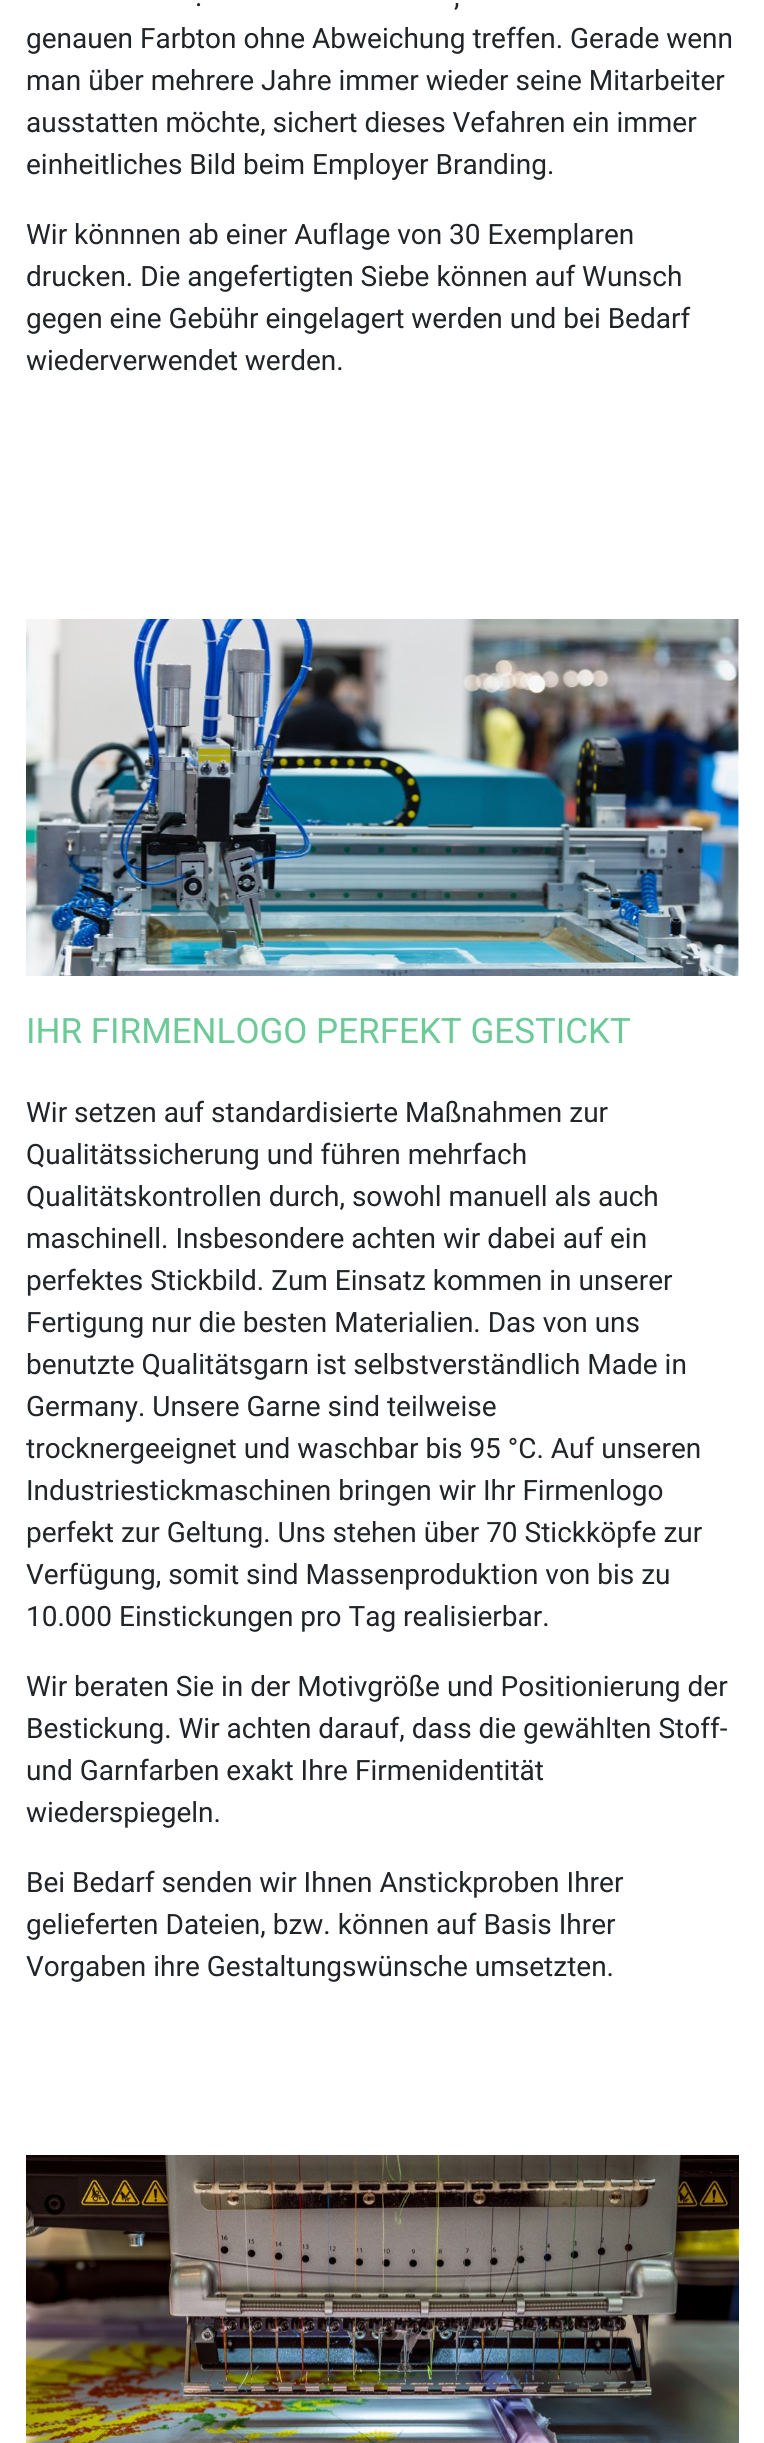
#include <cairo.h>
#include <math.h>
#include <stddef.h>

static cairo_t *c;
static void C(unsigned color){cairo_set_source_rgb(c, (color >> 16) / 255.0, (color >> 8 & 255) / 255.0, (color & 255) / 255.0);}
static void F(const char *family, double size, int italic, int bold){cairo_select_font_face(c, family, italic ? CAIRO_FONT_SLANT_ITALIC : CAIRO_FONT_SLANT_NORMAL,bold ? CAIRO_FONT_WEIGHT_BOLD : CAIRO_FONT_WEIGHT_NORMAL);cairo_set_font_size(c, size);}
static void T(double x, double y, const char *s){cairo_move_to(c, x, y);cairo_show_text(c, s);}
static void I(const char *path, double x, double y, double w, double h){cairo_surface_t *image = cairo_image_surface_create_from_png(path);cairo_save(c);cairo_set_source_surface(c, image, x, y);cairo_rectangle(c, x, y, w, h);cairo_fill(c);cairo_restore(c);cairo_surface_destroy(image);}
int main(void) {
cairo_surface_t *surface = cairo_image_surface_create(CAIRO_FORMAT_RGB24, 764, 2443);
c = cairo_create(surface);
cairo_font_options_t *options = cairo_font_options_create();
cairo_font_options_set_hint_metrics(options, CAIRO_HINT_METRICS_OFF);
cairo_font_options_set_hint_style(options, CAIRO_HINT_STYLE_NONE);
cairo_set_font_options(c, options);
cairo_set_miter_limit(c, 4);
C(0xffffff);
cairo_paint(c);
F("Roboto",28,0,0);
C(0x212529);
T(195,6,".");
T(454,6,",");
T(26,48,"genauen Farbton ohne Abweichung treffen. Gerade wenn");
T(26,90,"man über mehrere Jahre immer wieder seine Mitarbeiter");
T(26,132,"ausstatten möchte, sichert dieses Vefahren ein immer");
T(26,174,"einheitliches Bild beim Employer Branding.");
T(26,244,"Wir könnnen ab einer Auflage von 30 Exemplaren");
T(26,286,"drucken. Die angefertigten Siebe können auf Wunsch");
T(26,328,"gegen eine Gebühr eingelagert werden und bei Bedarf");
T(26,370,"wiederverwendet werden.");
I("1.png",26,619,713,357);
F("Roboto",35,0,0);
C(0x6cca98);
T(26,1043,"IHR FIRMENLOGO PERFEKT GESTICKT");
F("Roboto",28,0,0);
C(0x212529);
T(26,1122,"Wir setzen auf standardisierte Maßnahmen zur");
T(26,1164,"Qualitätssicherung und führen mehrfach");
T(26,1206,"Qualitätskontrollen durch, sowohl manuell als auch");
T(26,1248,"maschinell. Insbesondere achten wir dabei auf ein");
T(26,1290,"perfektes Stickbild. Zum Einsatz kommen in unserer");
T(26,1332,"Fertigung nur die besten Materialien. Das von uns");
T(26,1374,"benutzte Qualitätsgarn ist selbstverständlich Made in");
T(26,1416,"Germany. Unsere Garne sind teilweise");
T(26,1458,"trocknergeeignet und waschbar bis 95 °C. Auf unseren");
T(26,1500,"Industriestickmaschinen bringen wir Ihr Firmenlogo");
T(26,1542,"perfekt zur Geltung. Uns stehen über 70 Stickköpfe zur");
T(26,1584,"Verfügung, somit sind Massenproduktion von bis zu");
T(26,1626,"10.000 Einstickungen pro Tag realisierbar.");
T(26,1696,"Wir beraten Sie in der Motivgröße und Positionierung der");
T(26,1738,"Bestickung. Wir achten darauf, dass die gewählten Stoff-");
T(26,1780,"und Garnfarben exakt Ihre Firmenidentität");
T(26,1822,"wiederspiegeln.");
T(26,1892,"Bei Bedarf senden wir Ihnen Anstickproben Ihrer");
T(26,1934,"gelieferten Dateien, bzw. können auf Basis Ihrer");
T(26,1976,"Vorgaben ihre Gestaltungswünsche umsetzten.");
I("2.png",26,2155,713,288);
cairo_surface_write_to_png(surface, "o.png");
cairo_font_options_destroy(options);
cairo_destroy(c);
cairo_surface_destroy(surface);
return 0;
}
